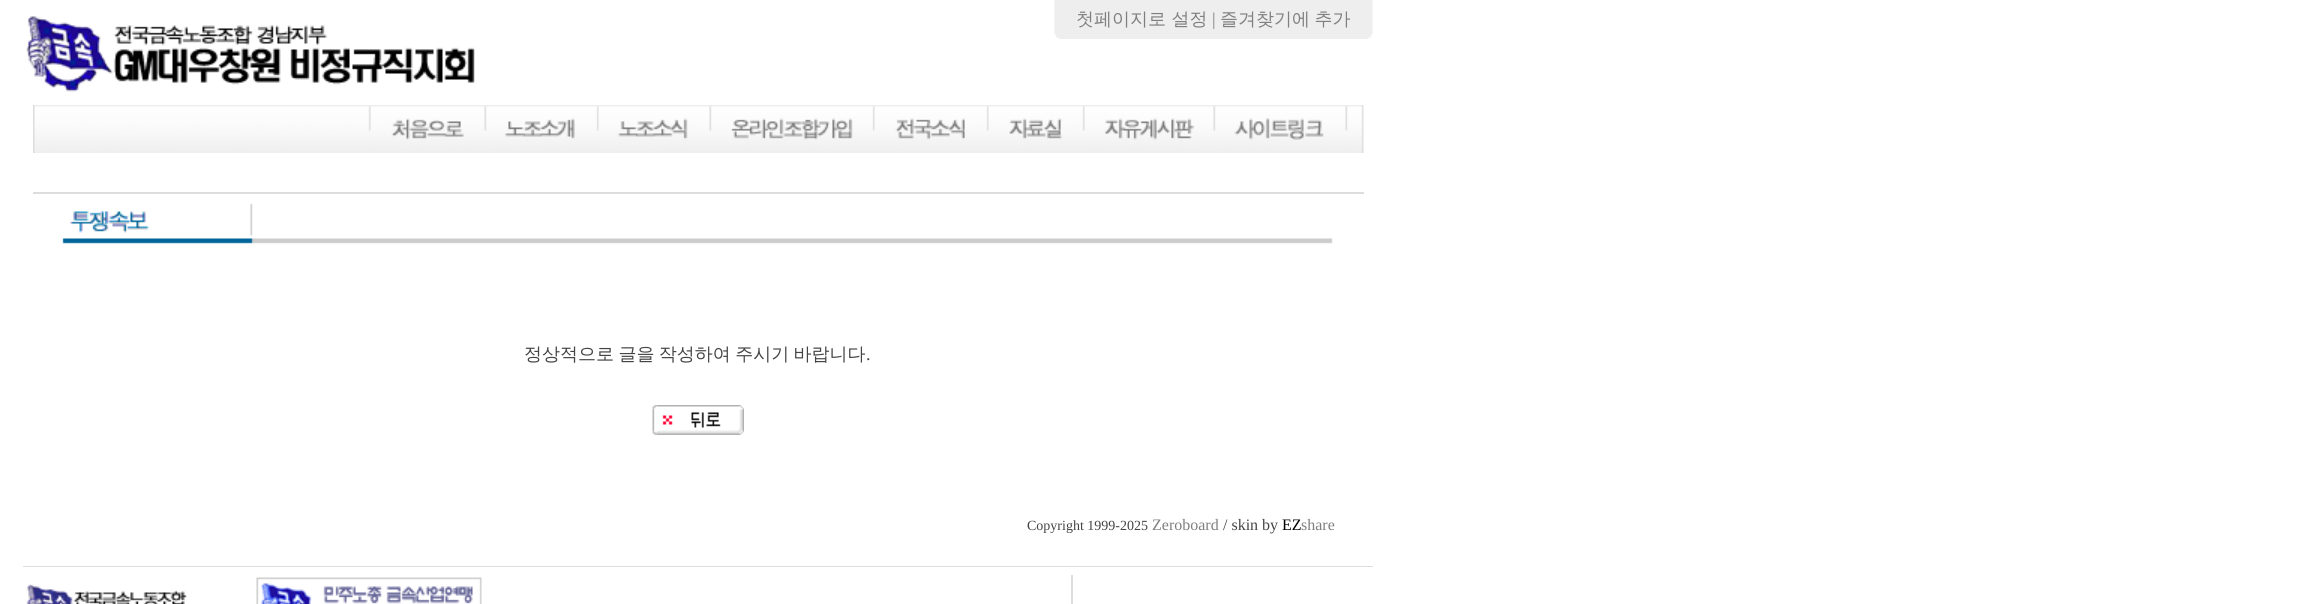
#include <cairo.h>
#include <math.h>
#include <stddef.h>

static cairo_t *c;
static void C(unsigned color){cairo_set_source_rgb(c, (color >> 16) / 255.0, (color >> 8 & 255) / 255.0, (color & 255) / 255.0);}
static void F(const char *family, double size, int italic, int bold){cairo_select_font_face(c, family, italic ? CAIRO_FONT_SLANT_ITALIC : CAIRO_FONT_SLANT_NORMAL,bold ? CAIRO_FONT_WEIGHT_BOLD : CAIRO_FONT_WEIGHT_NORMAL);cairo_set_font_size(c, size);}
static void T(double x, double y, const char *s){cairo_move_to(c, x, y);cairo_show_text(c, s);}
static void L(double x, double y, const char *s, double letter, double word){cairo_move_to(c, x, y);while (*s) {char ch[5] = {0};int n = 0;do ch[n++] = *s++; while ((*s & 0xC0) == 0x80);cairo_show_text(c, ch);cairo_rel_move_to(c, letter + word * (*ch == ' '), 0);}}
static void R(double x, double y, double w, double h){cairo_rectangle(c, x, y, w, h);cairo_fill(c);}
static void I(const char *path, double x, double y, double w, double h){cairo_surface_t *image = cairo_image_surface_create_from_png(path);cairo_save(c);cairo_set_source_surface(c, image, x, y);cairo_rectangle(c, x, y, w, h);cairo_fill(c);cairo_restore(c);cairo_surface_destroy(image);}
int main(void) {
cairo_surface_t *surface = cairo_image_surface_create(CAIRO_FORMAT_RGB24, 2309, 604);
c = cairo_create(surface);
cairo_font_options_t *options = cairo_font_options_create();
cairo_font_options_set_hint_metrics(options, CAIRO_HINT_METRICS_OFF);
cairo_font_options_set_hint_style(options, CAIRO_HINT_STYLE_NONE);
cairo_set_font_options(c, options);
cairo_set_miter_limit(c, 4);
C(0xffffff);
cairo_paint(c);
I("1.png",26,16,449,76);
I("2.png",1054,0,8,39);
C(0xeeeeee);
R(1062,0,303,39);
I("3.png",1365,0,8,39);
F("WenQuanYi Zen Hei Medium",18,0,0);
C(0x7f7f7f);
T(1076,25,"첫페이지로 설정");
F("Liberation Serif",18,0,0);
T(1212,25,"|");
F("WenQuanYi Zen Hei Medium",18,0,0);
L(1220,25,"즐겨찾기에 추가",0,-1);
I("4.png",33,105,324,48);
I("5.png",357,105,1007,48);
C(0xdddddd);
R(33,192,1331,2);
I("6.png",62,203,1271,41);
C(0x444444);
L(524,360,"정상적으로 글을 작성하여 주시기 바랍니다",0,-1);
F("Liberation Serif",18,0,0);
T(866,360,".");
I("7.png",652,405,92,30);
F("Liberation Serif",14,0,0);
T(1027,530,"Copyright 1999-2025");
F("Liberation Serif",16,0,0);
C(0x7f7f7f);
T(1152,530,"Zeroboard");
C(0x444444);
T(1223,530,"/ skin by");
C(0x000000);
T(1282,530,"EZ");
C(0x7f7f7f);
T(1301,530,"share");
C(0xdddddd);
R(23,566,1350,1);
I("8.png",26,584,161,20);
I("9.png",256,577,226,27);
R(1071,575,2,29);
cairo_surface_write_to_png(surface, "o.png");
cairo_font_options_destroy(options);
cairo_destroy(c);
cairo_surface_destroy(surface);
return 0;
}
